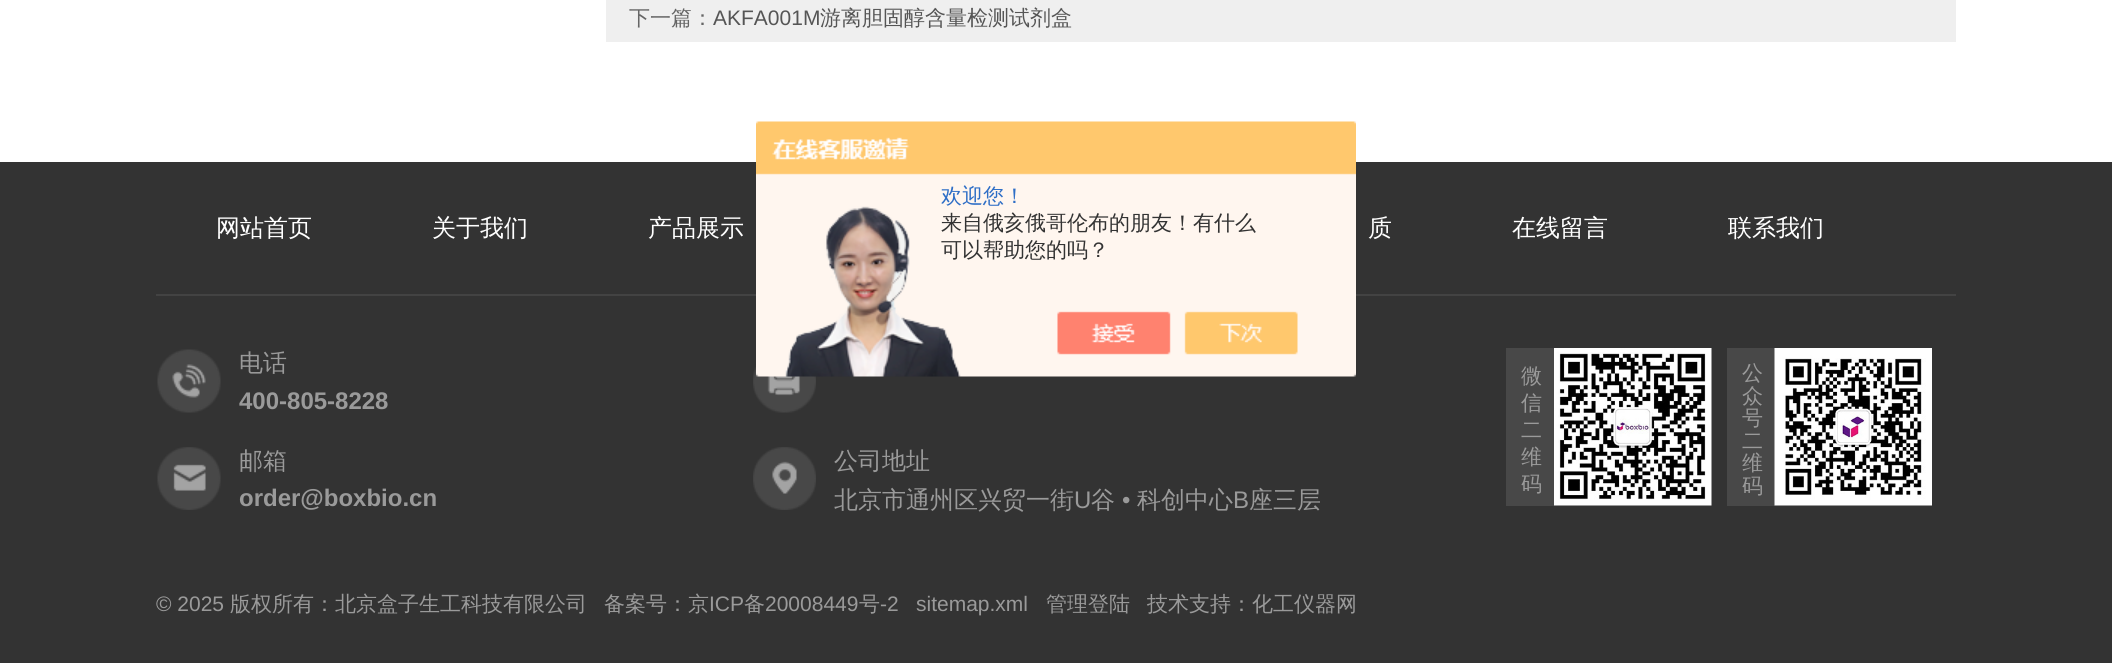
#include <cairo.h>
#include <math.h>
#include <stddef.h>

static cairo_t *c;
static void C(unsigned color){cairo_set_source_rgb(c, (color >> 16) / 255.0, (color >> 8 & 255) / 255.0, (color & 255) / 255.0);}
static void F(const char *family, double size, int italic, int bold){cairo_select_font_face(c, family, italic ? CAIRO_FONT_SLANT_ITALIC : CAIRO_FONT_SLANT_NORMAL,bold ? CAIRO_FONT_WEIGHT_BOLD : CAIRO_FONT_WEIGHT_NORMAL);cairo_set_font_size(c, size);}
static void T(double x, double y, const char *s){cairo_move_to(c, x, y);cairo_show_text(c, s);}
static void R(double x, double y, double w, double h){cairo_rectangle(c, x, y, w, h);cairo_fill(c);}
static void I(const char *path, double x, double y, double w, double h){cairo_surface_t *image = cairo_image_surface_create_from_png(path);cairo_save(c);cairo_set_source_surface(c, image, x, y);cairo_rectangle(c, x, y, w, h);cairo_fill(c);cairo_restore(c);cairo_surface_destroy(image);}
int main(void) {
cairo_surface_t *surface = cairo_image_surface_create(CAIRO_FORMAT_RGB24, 2112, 663);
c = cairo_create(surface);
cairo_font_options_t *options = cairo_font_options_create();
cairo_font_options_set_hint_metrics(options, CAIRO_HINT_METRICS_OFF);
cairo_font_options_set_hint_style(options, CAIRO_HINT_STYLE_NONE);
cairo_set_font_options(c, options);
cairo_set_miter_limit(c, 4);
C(0xffffff);
cairo_paint(c);
C(0xefefef);
R(606,0,1350,42);
F("WenQuanYi Zen Hei Medium",21,0,0);
C(0x666666);
T(629,25,"下一篇：");
F("Liberation Sans",21,0,0);
C(0x555555);
T(713,25,"AKFA001M");
F("WenQuanYi Zen Hei Medium",21,0,0);
T(820,25,"游离胆固醇含量检测试剂盒");
C(0x333333);
R(0,162,2112,501);
C(0x434343);
R(156,294,1800,2);
I("3.png",753,365,63,48);
I("1.png",756,121,600,256);
C(0x2e6ec6);
T(941,203,"欢迎您！");
C(0x333333);
T(941,230,"来自俄亥俄哥伦布的朋友！有什么");
T(941,257,"可以帮助您的吗？");
F("WenQuanYi Zen Hei Medium",24,0,0);
C(0xffffff);
T(216,236,"网站首页");
T(432,236,"关于我们");
T(648,236,"产品展示");
T(1368,236,"质");
T(1512,236,"在线留言");
T(1728,236,"联系我们");
I("2.png",157,349,64,64);
C(0x9a9a9a);
T(239,371,"电话");
cairo_save(c);
cairo_rectangle(c,239,387,513,27);
cairo_clip(c);
F("Liberation Sans",24,0,1);
T(239,409,"400-805-8228");
cairo_restore(c);
I("4.png",157,447,64,63);
T(239,469,"邮箱");
F("Liberation Sans",24,0,1);
T(239,506,"order@boxbio.cn");
I("5.png",753,447,63,63);
F("WenQuanYi Zen Hei Medium",24,0,0);
T(834,469,"公司地址");
T(834,508,"北京市通州区兴贸一街");
F("Liberation Sans",24,0,0);
T(1074,508,"U");
F("WenQuanYi Zen Hei Medium",24,0,0);
T(1091,508,"谷");
F("Liberation Sans",24,0,0);
T(1122,508,"•");
F("WenQuanYi Zen Hei Medium",24,0,0);
T(1137,508,"科创中心");
F("Liberation Sans",24,0,0);
T(1233,508,"B");
F("WenQuanYi Zen Hei Medium",24,0,0);
T(1249,508,"座三层");
F("Liberation Sans",21,0,0);
T(156,611,"© 2025");
F("WenQuanYi Zen Hei Medium",21,0,0);
T(230,611,"版权所有：北京盒子生工科技有限公司");
T(604,611,"备案号：京");
F("Liberation Sans",21,0,0);
T(709,611,"ICP");
F("WenQuanYi Zen Hei Medium",21,0,0);
T(744,611,"备");
F("Liberation Sans",21,0,0);
T(765,611,"20008449");
F("WenQuanYi Zen Hei Medium",21,0,0);
T(859,611,"号");
F("Liberation Sans",21,0,0);
T(880,611,"-2");
T(916,611,"sitemap.xml");
F("WenQuanYi Zen Hei Medium",21,0,0);
T(1046,611,"管理登陆");
T(1147,611,"技术支持：化工仪器网");
C(0x484848);
R(1506,348,48,158);
C(0x9a9a9a);
T(1521,383,"微");
T(1521,410,"信");
T(1521,437,"二");
T(1521,464,"维");
T(1521,491,"码");
I("6.png",1554,348,158,158);
C(0x484848);
R(1727,348,48,158);
C(0x9a9a9a);
T(1742,380,"公");
T(1742,403,"众");
T(1742,425,"号");
T(1742,448,"二");
T(1742,470,"维");
T(1742,493,"码");
I("7.png",1774,348,158,158);
cairo_surface_write_to_png(surface, "o.png");
cairo_font_options_destroy(options);
cairo_destroy(c);
cairo_surface_destroy(surface);
return 0;
}
